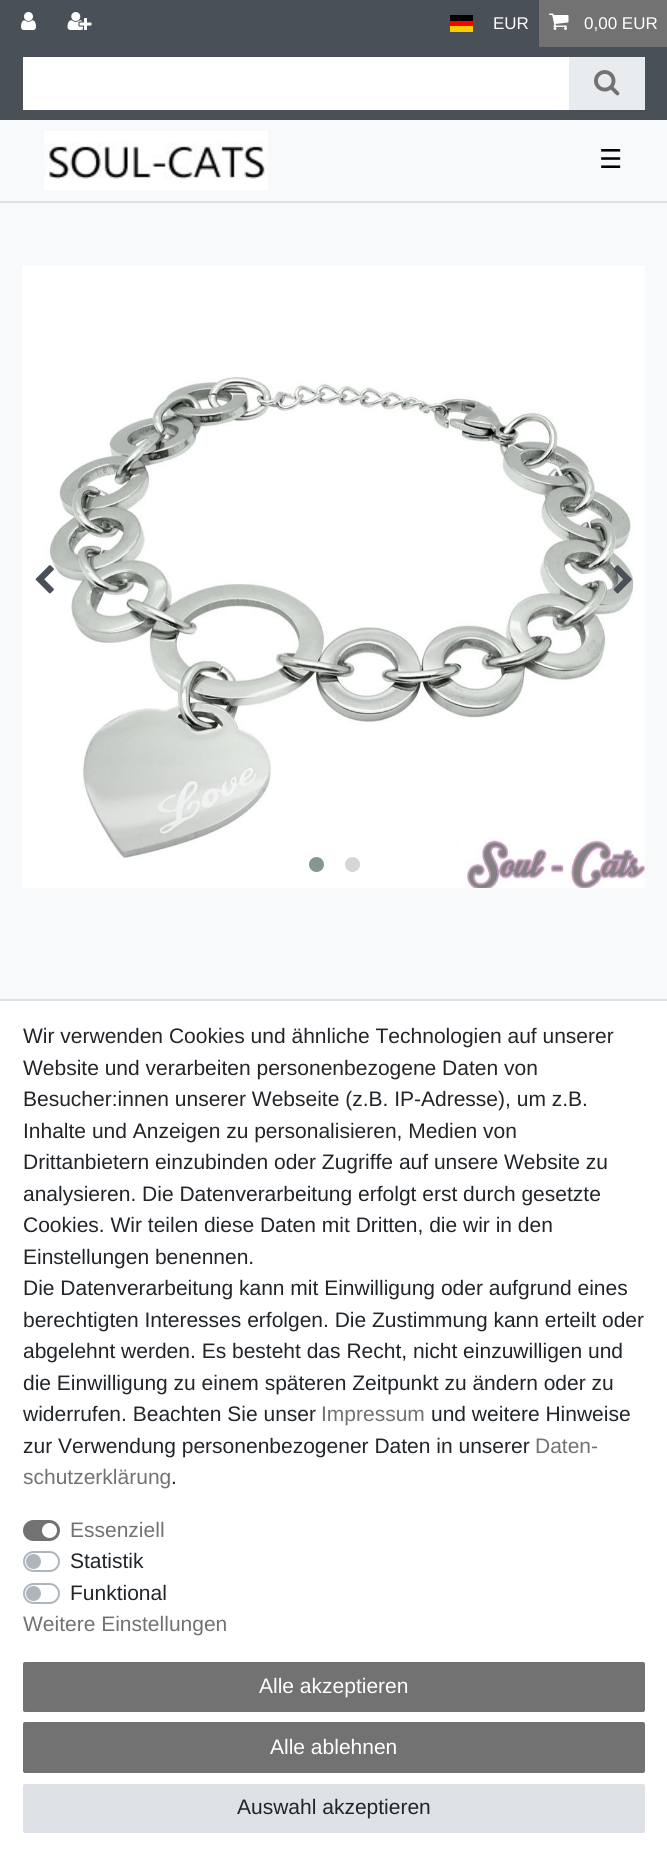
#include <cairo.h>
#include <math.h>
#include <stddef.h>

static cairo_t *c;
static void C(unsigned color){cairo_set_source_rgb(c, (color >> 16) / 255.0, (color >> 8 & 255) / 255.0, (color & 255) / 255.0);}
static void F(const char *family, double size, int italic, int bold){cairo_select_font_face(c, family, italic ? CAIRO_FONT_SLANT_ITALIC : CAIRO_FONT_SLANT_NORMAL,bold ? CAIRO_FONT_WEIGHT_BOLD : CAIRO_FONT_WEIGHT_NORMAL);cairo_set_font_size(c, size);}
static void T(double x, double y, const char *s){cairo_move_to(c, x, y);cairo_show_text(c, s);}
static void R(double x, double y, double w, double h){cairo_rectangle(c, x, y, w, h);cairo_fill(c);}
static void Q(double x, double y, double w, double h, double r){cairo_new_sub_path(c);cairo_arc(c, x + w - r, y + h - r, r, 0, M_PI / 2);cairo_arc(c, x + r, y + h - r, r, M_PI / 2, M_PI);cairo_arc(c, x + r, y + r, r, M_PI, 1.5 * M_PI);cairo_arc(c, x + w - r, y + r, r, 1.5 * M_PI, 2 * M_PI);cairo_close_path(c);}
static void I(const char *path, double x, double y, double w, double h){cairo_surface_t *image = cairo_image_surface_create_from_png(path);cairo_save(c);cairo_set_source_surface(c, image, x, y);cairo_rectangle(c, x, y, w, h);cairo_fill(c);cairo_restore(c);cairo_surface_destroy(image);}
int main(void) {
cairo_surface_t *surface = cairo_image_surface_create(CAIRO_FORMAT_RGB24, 667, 1864);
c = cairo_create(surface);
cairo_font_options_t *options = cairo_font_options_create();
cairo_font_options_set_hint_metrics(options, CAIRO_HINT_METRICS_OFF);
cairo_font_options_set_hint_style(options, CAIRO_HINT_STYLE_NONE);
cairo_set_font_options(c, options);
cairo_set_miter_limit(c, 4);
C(0xf8f9fa);
cairo_paint(c);
C(0x495057);
R(0,0,667,120);
I("1.png",21,12,15,18);
I("2.png",67,12,25,18);
C(0xffcc00);
R(450,26,23,6);
C(0x000000);
R(450,15,23,6);
C(0xff0000);
R(450,21,23,5);
F("Liberation Sans",17,0,0);
C(0xffffff);
T(493,29,"EUR");
C(0x727272);
R(539,0,128,47);
I("3.png",549,13,20,17);
C(0xffffff);
T(584,29,"0,00 EUR");
R(23,57,546,53);
C(0xe9ecef);
R(569,57,76,53);
I("4.png",594,70,26,26);
C(0xdee2e6);
R(0,201,667,2);
I("5.png",44,131,224,59);
F("DejaVu Sans",26,0,0);
C(0x000000);
T(599,168,"☰");
I("6.png",22,265,623,623);
I("7.png",35,565,19,29);
I("8.png",613,565,19,29);
C(0x869791);
cairo_arc(c,316.5,864.5,7.5,0,2 * M_PI);
cairo_fill(c);
C(0xd6d6d6);
cairo_arc(c,352.5,864.5,7.5,0,2 * M_PI);
cairo_fill(c);
C(0xffffff);
R(0,1001,667,863);
C(0xdee2e6);
R(0,999,667,2);
F("Liberation Sans",21,0,0);
C(0x212529);
T(23,1043,"Wir verwenden Cookies und ähnliche Technologien auf unserer");
T(23,1075,"Website und verarbeiten personenbezogene Daten von");
T(23,1106,"Besucher:innen unserer Webseite (z.B. IP-Adresse), um z.B.");
T(23,1138,"Inhalte und Anzeigen zu personalisieren, Medien von");
T(23,1169,"Drittanbietern einzubinden oder Zugriffe auf unsere Website zu");
T(23,1201,"analysieren. Die Datenverarbeitung erfolgt erst durch gesetzte");
T(23,1232,"Cookies. Wir teilen diese Daten mit Dritten, die wir in den");
T(23,1264,"Einstellungen benennen.");
T(23,1295,"Die Datenverarbeitung kann mit Einwilligung oder aufgrund eines");
T(23,1327,"berechtigten Interesses erfolgen. Die Zustimmung kann erteilt oder");
T(23,1358,"abgelehnt werden. Es besteht das Recht, nicht einzuwilligen und");
T(23,1390,"die Einwilligung zu einem späteren Zeitpunkt zu ändern oder zu");
T(23,1421,"widerrufen. Beachten Sie unser");
C(0x727272);
T(321,1421,"Impressum");
C(0x212529);
T(431,1421,"und weitere Hinweise");
T(23,1453,"zur Verwendung personenbezogener Daten in unserer");
C(0x727272);
T(535,1453,"Daten-");
T(23,1484,"schutzerklärung");
C(0x212529);
T(171,1484,".");
C(0x727272);
Q(24,1521,35,19,9.5);
cairo_fill_preserve(c);
cairo_stroke(c);
T(70,1537,"Essenziell");
C(0xffffff);
cairo_new_path(c);
cairo_arc(c,49.5,1530.5,7.5,0,2 * M_PI);
cairo_fill(c);
Q(24,1552,35,19,9.5);
C(0xadb5bd);
cairo_stroke(c);
C(0x212529);
T(70,1568,"Statistik");
C(0xadb5bd);
cairo_new_path(c);
cairo_arc(c,33.5,1561.5,7.5,0,2 * M_PI);
cairo_fill(c);
Q(24,1584,35,19,9.5);
cairo_stroke(c);
C(0x212529);
T(70,1600,"Funktional");
C(0xadb5bd);
cairo_new_path(c);
cairo_arc(c,33.5,1593.5,7.5,0,2 * M_PI);
cairo_fill(c);
C(0x727272);
T(23,1631,"Weitere Einstellungen");
Q(24,1663,620,48,1);
cairo_fill_preserve(c);
cairo_stroke(c);
C(0xffffff);
T(259,1693,"Alle akzeptieren");
C(0x727272);
Q(24,1723,620,49,1);
cairo_fill_preserve(c);
cairo_stroke(c);
C(0xffffff);
T(270,1754,"Alle ablehnen");
C(0xdee2e6);
Q(24,1785,620,47,1);
cairo_fill_preserve(c);
cairo_stroke(c);
C(0x212529);
T(237,1814,"Auswahl akzeptieren");
cairo_surface_write_to_png(surface, "o.png");
cairo_font_options_destroy(options);
cairo_destroy(c);
cairo_surface_destroy(surface);
return 0;
}
